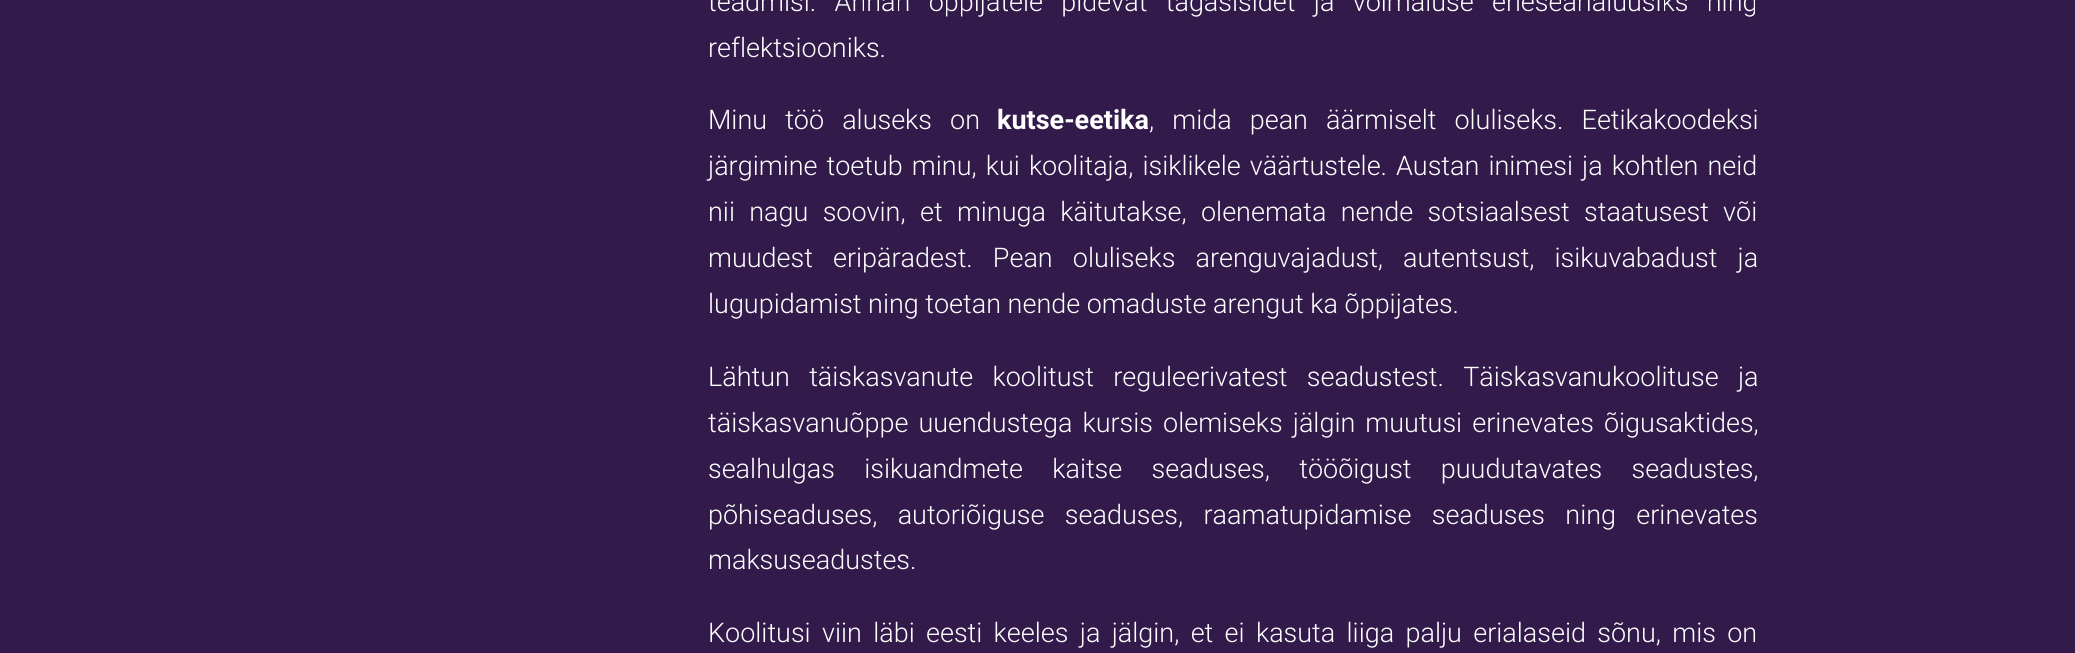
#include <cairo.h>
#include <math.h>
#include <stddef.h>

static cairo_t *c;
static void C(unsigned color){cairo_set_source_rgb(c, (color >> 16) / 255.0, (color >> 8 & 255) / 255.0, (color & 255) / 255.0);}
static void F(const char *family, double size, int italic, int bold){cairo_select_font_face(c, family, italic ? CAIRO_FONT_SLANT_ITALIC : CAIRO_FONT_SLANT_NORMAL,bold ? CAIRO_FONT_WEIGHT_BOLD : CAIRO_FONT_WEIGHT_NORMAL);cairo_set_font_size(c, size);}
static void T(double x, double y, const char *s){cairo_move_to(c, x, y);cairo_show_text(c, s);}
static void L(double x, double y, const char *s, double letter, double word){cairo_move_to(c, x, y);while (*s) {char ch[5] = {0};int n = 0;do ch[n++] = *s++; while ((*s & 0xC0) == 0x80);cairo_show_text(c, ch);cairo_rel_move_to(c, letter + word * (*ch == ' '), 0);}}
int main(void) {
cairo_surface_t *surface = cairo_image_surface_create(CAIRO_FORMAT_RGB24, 2075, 653);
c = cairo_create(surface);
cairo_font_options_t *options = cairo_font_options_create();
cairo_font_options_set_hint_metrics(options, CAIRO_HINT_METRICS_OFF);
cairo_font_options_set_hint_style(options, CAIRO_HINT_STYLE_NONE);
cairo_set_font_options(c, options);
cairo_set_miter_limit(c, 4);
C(0x321a4b);
cairo_paint(c);
F("Roboto Light",27,0,0);
C(0xffffff);
L(708,11,"teadmisi. Annan õppijatele pidevat tagasisidet ja võimaluse eneseanalüüsiks ning",0,11.75);
T(708,57,"reflektsiooniks.");
L(708,129,"Minu töö aluseks on",0,11.5);
F("Roboto",27,0,1);
T(997,129,"kutse-eetika");
F("Roboto Light",27,0,0);
L(1149,129,", mida pean äärmiselt oluliseks. Eetikakoodeksi",0,11.5);
L(708,175,"järgimine toetub minu, kui koolitaja, isiklikele väärtustele.",0,2.5);
L(1396,175,"Austan inimesi ja kohtlen neid",0,2.5);
L(708,221,"nii nagu soovin, et minuga käitutakse, olenemata nende sotsiaalsest staatusest või",0,7.75);
L(708,267,"muudest eripäradest. Pean oluliseks arenguvajadust, autentsust, isikuvabadust ja",0,13.5);
T(708,313,"lugupidamist ning toetan nende omaduste arengut ka õppijates.");
L(708,386,"Lähtun täiskasvanute koolitust reguleerivatest seadustest. Täiskasvanukoolituse ja",0,12.75);
L(708,432,"täiskasvanuõppe uuendustega kursis olemiseks jälgin muutusi erinevates õigusaktides,",0,3.5);
L(708,478,"sealhulgas isikuandmete kaitse seaduses, tööõigust puudutavates seadustes,",0,22.75);
L(708,524,"põhiseaduses, autoriõiguse seaduses, raamatupidamise seaduses ning erinevates",0,13.75);
T(708,569,"maksuseadustes.");
L(708,642,"Koolitusi viin läbi eesti keeles ja jälgin, et ei kasuta liiga palju erialaseid sõnu, mis on",0,4.75);
cairo_surface_write_to_png(surface, "o.png");
cairo_font_options_destroy(options);
cairo_destroy(c);
cairo_surface_destroy(surface);
return 0;
}
